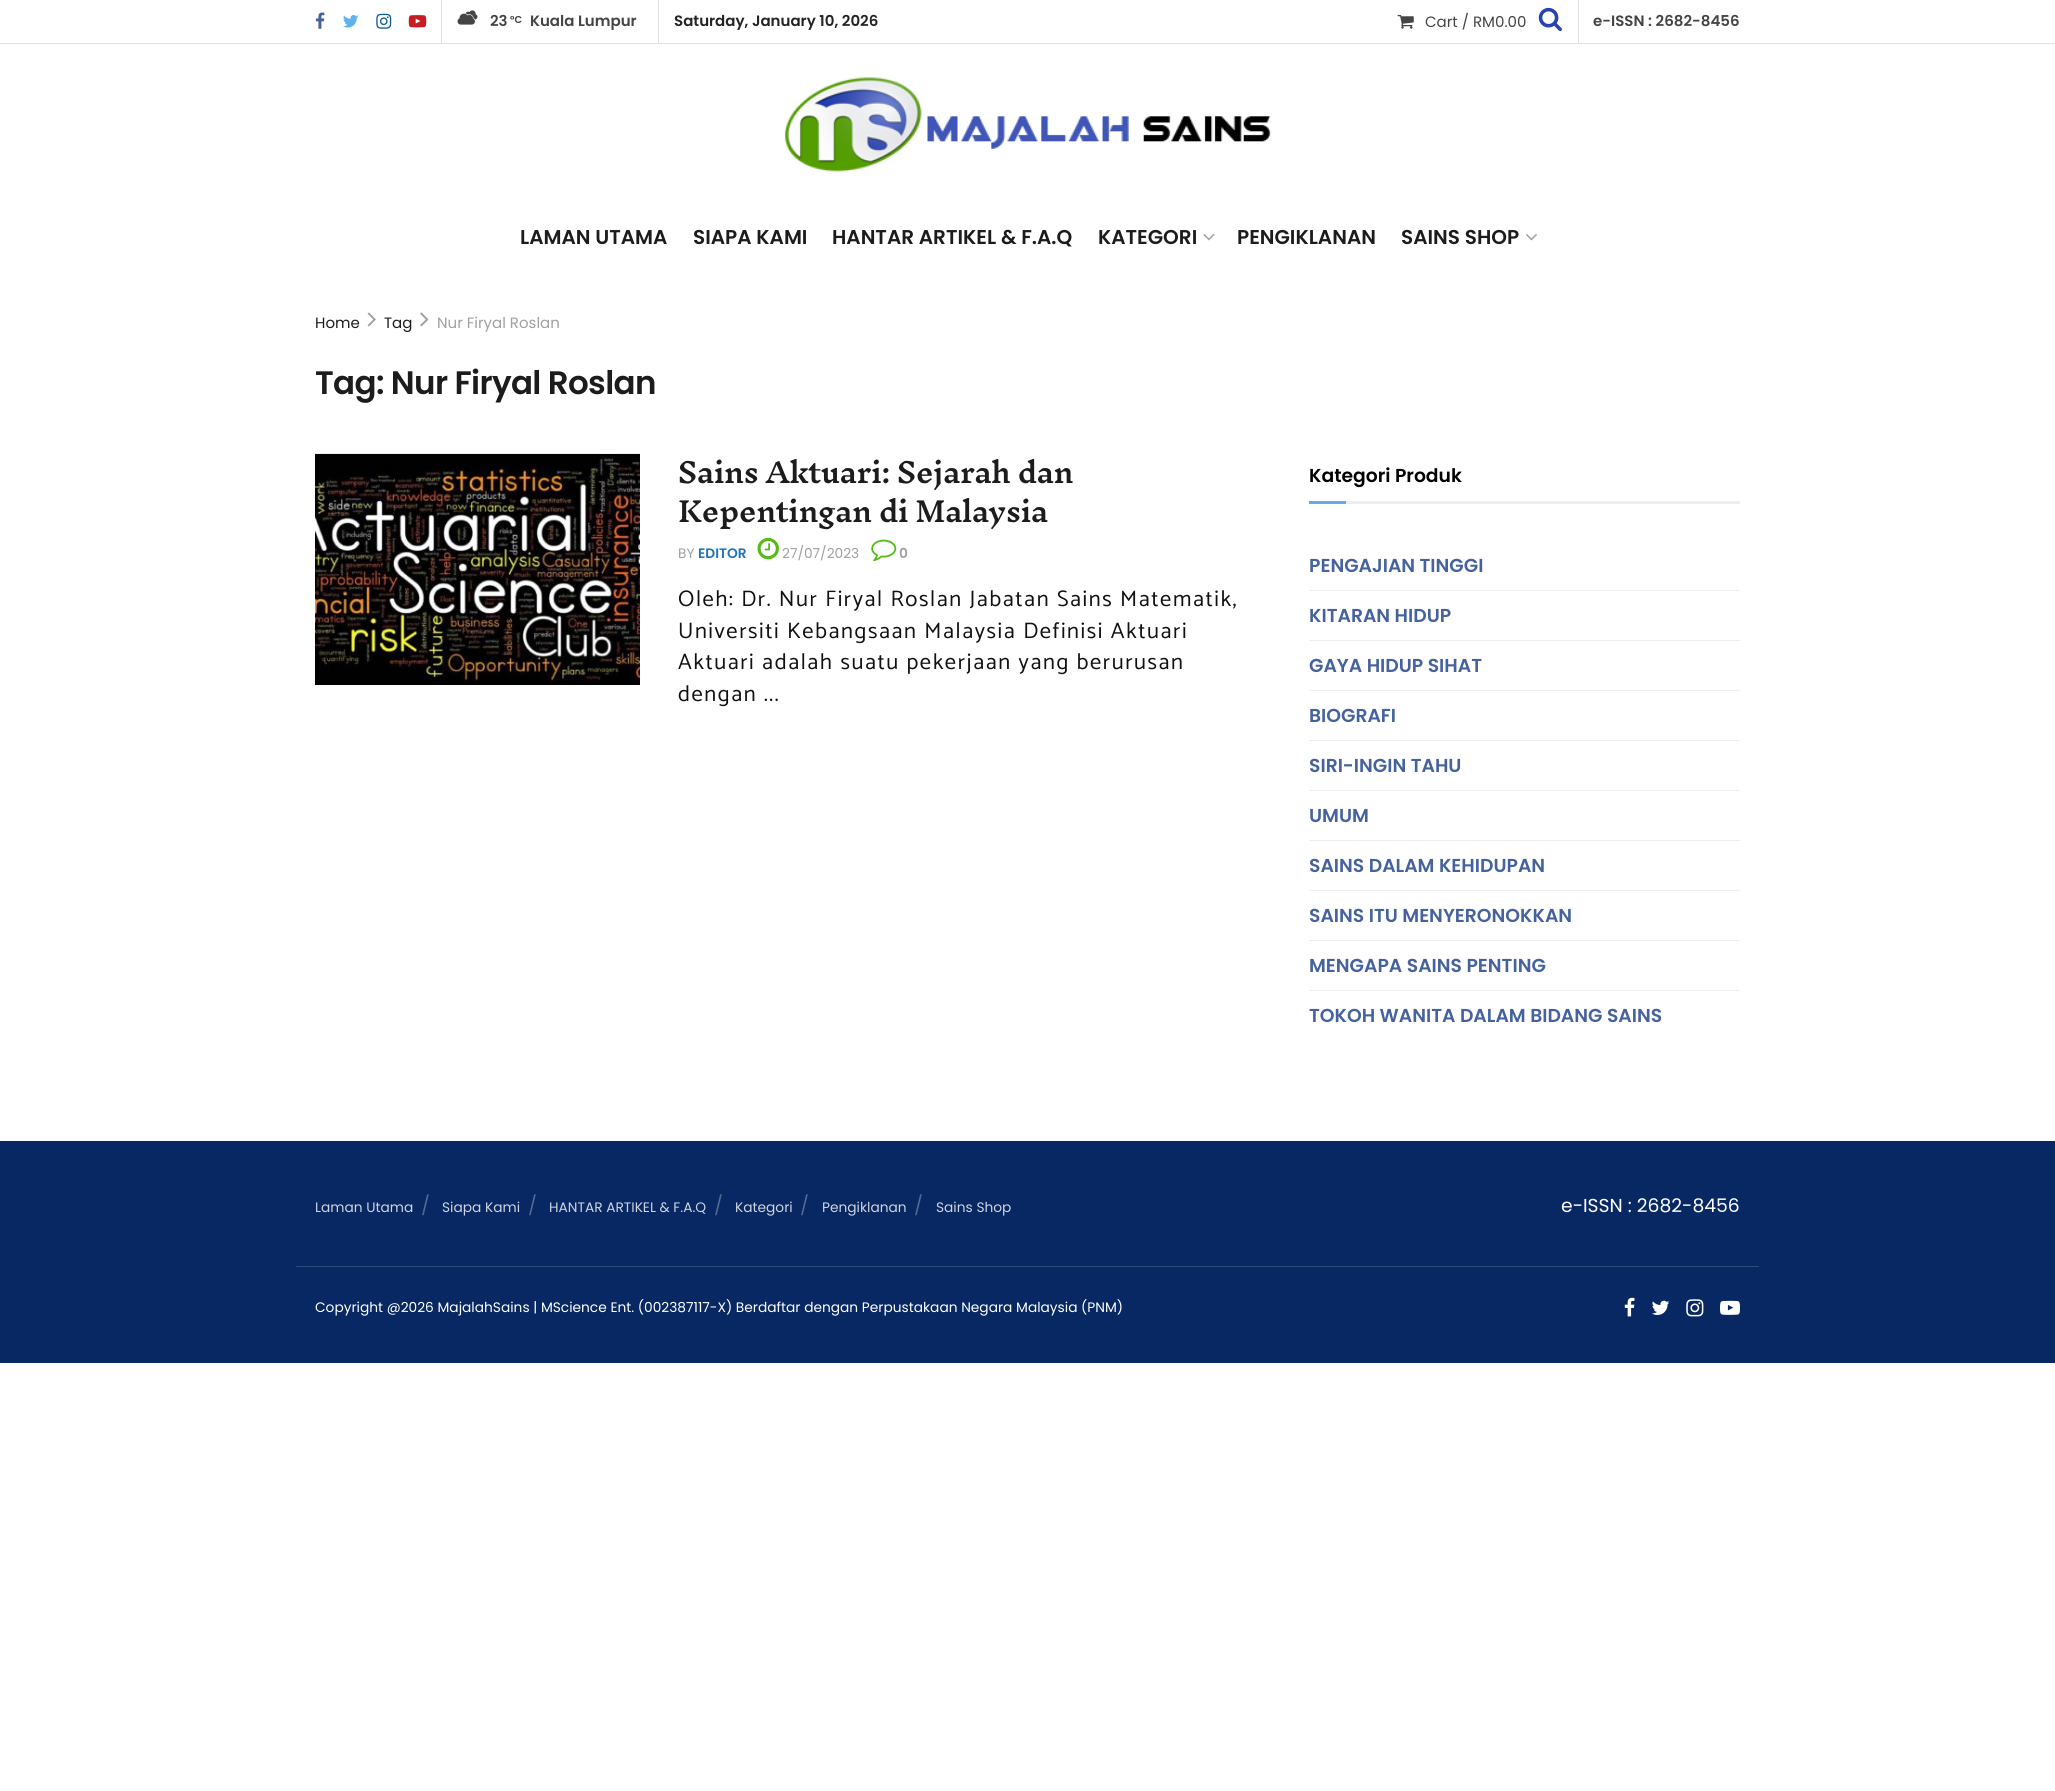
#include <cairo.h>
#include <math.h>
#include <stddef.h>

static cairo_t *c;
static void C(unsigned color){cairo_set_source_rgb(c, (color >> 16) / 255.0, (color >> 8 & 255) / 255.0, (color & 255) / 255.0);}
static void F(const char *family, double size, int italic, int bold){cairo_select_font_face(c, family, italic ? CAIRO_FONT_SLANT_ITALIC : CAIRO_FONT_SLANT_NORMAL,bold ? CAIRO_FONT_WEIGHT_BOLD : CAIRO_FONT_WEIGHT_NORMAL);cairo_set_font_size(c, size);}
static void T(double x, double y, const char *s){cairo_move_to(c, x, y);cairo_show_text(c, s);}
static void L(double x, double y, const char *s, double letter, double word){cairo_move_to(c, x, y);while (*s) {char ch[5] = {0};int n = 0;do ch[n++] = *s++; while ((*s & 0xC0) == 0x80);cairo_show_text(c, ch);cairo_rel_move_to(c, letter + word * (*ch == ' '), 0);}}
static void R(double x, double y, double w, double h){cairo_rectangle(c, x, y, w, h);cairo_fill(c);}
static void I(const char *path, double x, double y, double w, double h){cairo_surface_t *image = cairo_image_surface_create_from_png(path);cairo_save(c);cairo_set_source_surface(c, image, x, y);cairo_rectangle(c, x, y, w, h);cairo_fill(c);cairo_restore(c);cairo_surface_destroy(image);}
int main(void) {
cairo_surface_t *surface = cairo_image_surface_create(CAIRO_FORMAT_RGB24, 2055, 1791);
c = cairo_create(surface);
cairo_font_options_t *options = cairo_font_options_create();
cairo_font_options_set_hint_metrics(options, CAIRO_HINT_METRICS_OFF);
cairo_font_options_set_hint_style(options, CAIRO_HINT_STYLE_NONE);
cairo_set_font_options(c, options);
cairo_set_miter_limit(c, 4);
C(0xffffff);
cairo_paint(c);
C(0xe0e0e0);
R(0,43,2055,1);
R(441,0,1,44);
I("1.png",315,12,10,17);
I("2.png",343,15,16,13);
I("3.png",376,13,16,16);
I("4.png",408,15,19,13);
R(658,0,1,43);
I("5.png",457,10,21,15);
F("Poppins SemiBold",15,0,0);
C(0x444444);
T(490,26,"23");
F("Poppins SemiBold",10,0,0);
T(510,23,"°C");
F("Poppins SemiBold",15,0,0);
T(530,26,"Kuala Lumpur");
C(0x232323);
T(674,26,"Saturday, January 10, 2026");
I("6.png",1397,15,17,14);
F("Poppins",15,0,0);
C(0x444444);
T(1425,27,"Cart / RM0.00");
C(0xe0e0e0);
R(1578,0,1,43);
I("7.png",1538,7,24,25);
F("Poppins SemiBold",15,0,0);
C(0x444444);
T(1593,26,"e-ISSN : 2682-8456");
I("8.png",784,77,487,95);
F("Poppins SemiBold",20,0,0);
C(0x1c1c1c);
T(520,244,"LAMAN UTAMA");
T(693,244,"SIAPA KAMI");
T(832,244,"HANTAR ARTIKEL & F.A.Q");
T(1098,244,"KATEGORI");
I("9.png",1203,234,12,7);
T(1237,244,"PENGIKLANAN");
T(1401,244,"SAINS SHOP");
I("10.png",1526,234,11,7);
F("Poppins",15,0,0);
T(315,328,"Home");
I("11.png",367,312,9,15);
T(384,328,"Tag");
I("12.png",420,312,9,15);
C(0xa0a0a0);
T(437,328,"Nur Firyal Roslan");
F("Poppins SemiBold",32.5,0,0);
C(0x1c1c1c);
L(315,394,"Tag: Nur Firyal Roslan",-.65,0);
I("13.png",315,453,325,232);
F("Inknut Antiqua SemiBold",27.5,0,0);
L(678,483,"Sains Aktuari: Sejarah dan",-.55,0);
L(678,522,"Kepentingan di Malaysia",-.55,0);
F("Poppins",13.75,0,0);
C(0xa0a0a0);
T(678,558,"BY");
F("Poppins SemiBold",13.75,0,0);
C(0x1e73be);
T(698,558,"EDITOR");
I("14.png",757,537,22,23);
F("Poppins",13.75,0,0);
C(0xa0a0a0);
T(782,558,"27/07/2023");
I("15.png",871,539,26,23);
F("Poppins SemiBold",13.75,0,0);
T(899,558,"0");
F("Catamaran Thin",22.5,0,0);
C(0x111111);
L(678,606,"Oleh: Dr. Nur Firyal Roslan Jabatan Sains Matematik,",1.57,0);
L(678,638,"Universiti Kebangsaan Malaysia Definisi Aktuari",1.57,0);
L(678,669,"Aktuari adalah suatu pekerjaan yang berurusan",1.57,0);
L(678,701,"dengan ...",1.57,0);
C(0xeeeeee);
R(1346,501,394,3);
F("Poppins SemiBold",18.75,0,0);
C(0x000000);
T(1309,482,"Kategori Produk");
C(0x63abea);
R(1309,501,37,3);
C(0x45629f);
T(1309,572,"PENGAJIAN TINGGI");
C(0xeeeeee);
R(1309,590,431,1);
C(0x45629f);
T(1309,622,"KITARAN HIDUP");
C(0xeeeeee);
R(1309,640,431,1);
C(0x45629f);
T(1309,672,"GAYA HIDUP SIHAT");
C(0xeeeeee);
R(1309,690,431,1);
C(0x45629f);
T(1309,722,"BIOGRAFI");
C(0xeeeeee);
R(1309,740,431,1);
C(0x45629f);
T(1309,772,"SIRI-INGIN TAHU");
C(0xeeeeee);
R(1309,790,431,1);
C(0x45629f);
T(1309,822,"UMUM");
C(0xeeeeee);
R(1309,840,431,1);
C(0x45629f);
T(1309,872,"SAINS DALAM KEHIDUPAN");
C(0xeeeeee);
R(1309,890,431,1);
C(0x45629f);
T(1309,922,"SAINS ITU MENYERONOKKAN");
C(0xeeeeee);
R(1309,940,431,1);
C(0x45629f);
T(1309,972,"MENGAPA SAINS PENTING");
C(0xeeeeee);
R(1309,990,431,1);
C(0x45629f);
T(1309,1022,"TOKOH WANITA DALAM BIDANG SAINS");
C(0x082863);
R(0,1141,2055,222);
F("Poppins",13.75,0,0);
C(0xced4e0);
T(315,1212,"Laman Utama");
F("Poppins",18.75,0,0);
C(0x526992);
T(421,1212,"/");
F("Poppins",13.75,0,0);
C(0xced4e0);
T(442,1212,"Siapa Kami");
F("Poppins",18.75,0,0);
C(0x526992);
T(528,1212,"/");
F("Poppins",13.75,0,0);
C(0xced4e0);
T(549,1212,"HANTAR ARTIKEL & F.A.Q");
F("Poppins",18.75,0,0);
C(0x526992);
T(714,1212,"/");
F("Poppins",13.75,0,0);
C(0xced4e0);
T(735,1212,"Kategori");
F("Poppins",18.75,0,0);
C(0x526992);
T(800,1212,"/");
F("Poppins",13.75,0,0);
C(0xced4e0);
T(822,1212,"Pengiklanan");
F("Poppins",18.75,0,0);
C(0x526992);
T(914,1212,"/");
F("Poppins",13.75,0,0);
C(0xced4e0);
T(936,1212,"Sains Shop");
F("Poppins",18.75,0,0);
C(0xffffff);
T(1561,1212,"e-ISSN : 2682-8456");
C(0x2d487a);
R(296,1266,1463,1);
F("Poppins",13.75,0,0);
C(0xffffff);
T(315,1312,"Copyright @2026 MajalahSains | MScience Ent. (002387117-X) Berdaftar dengan Perpustakaan Negara Malaysia (PNM)");
I("16.png",1624,1297,11,20);
I("17.png",1652,1300,18,15);
I("18.png",1686,1299,18,18);
I("19.png",1720,1300,20,15);
cairo_surface_write_to_png(surface, "o.png");
cairo_font_options_destroy(options);
cairo_destroy(c);
cairo_surface_destroy(surface);
return 0;
}
